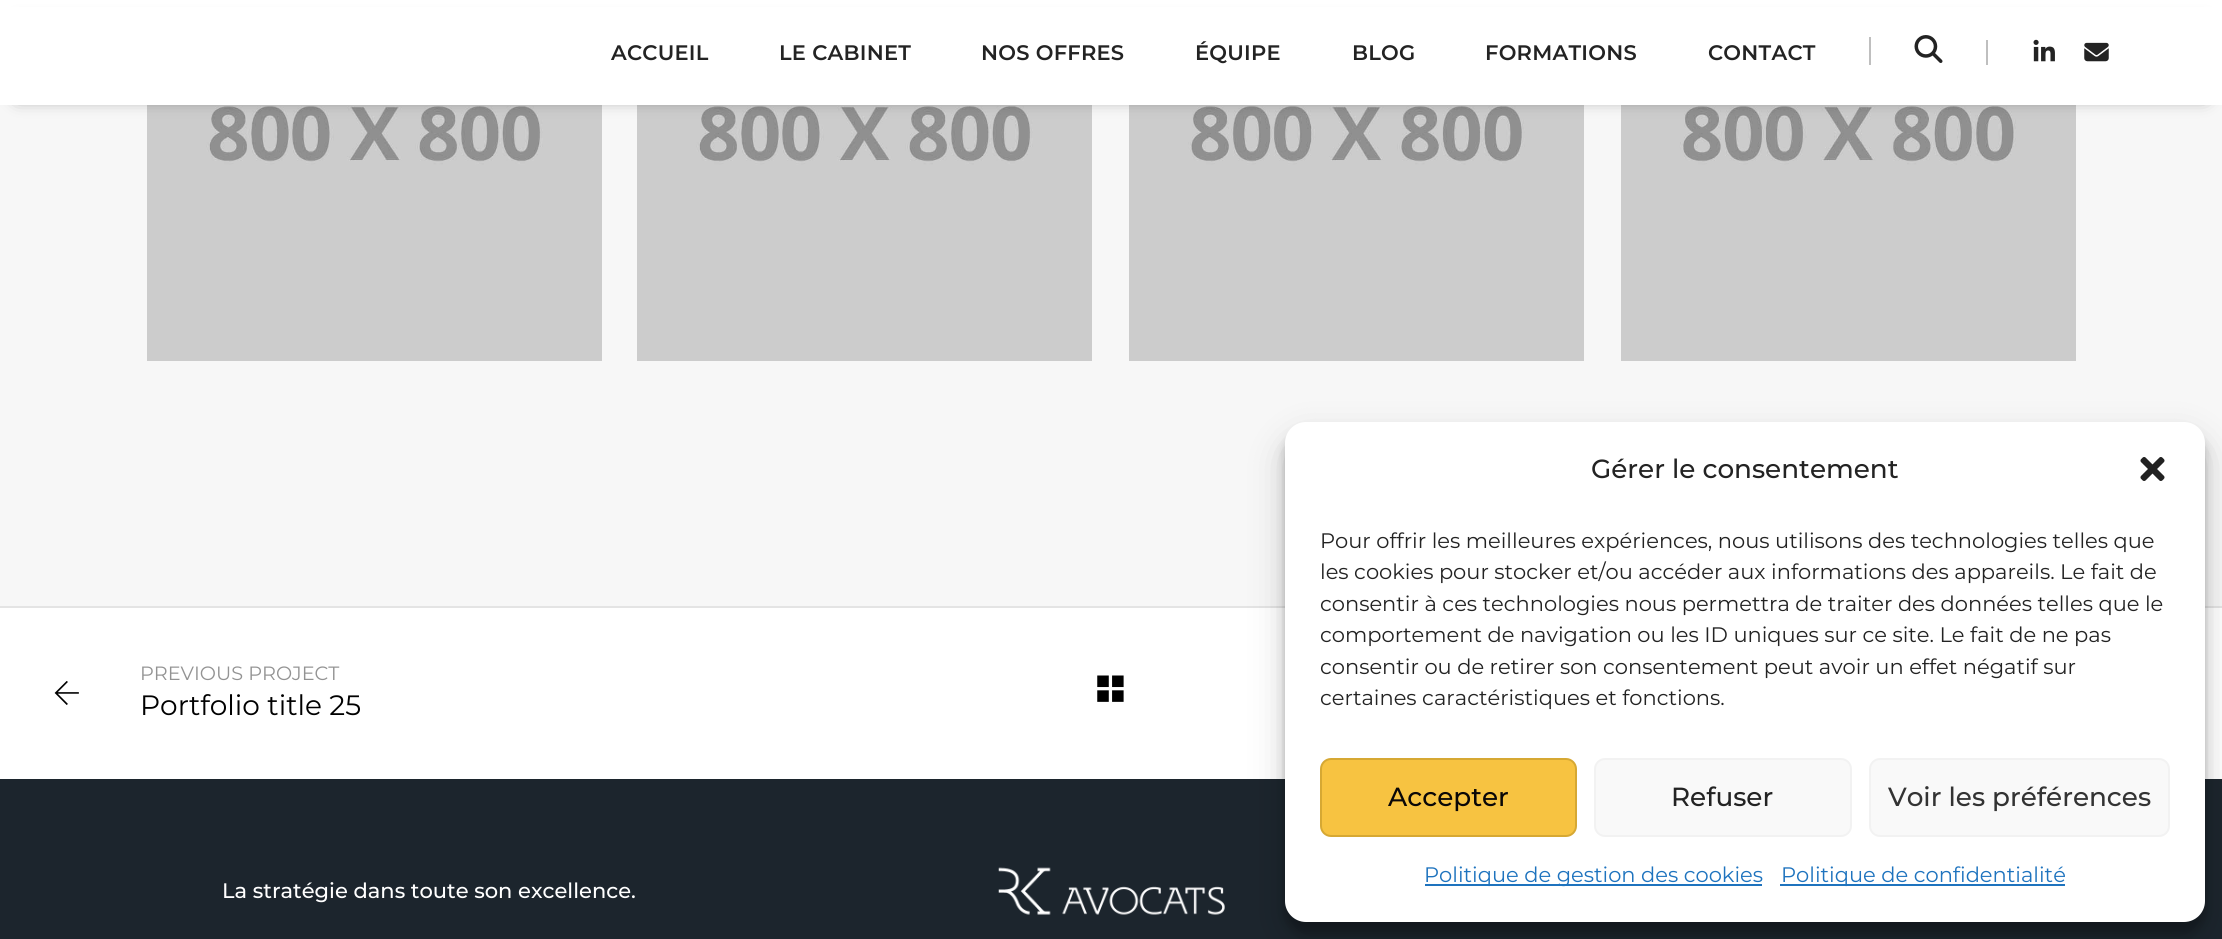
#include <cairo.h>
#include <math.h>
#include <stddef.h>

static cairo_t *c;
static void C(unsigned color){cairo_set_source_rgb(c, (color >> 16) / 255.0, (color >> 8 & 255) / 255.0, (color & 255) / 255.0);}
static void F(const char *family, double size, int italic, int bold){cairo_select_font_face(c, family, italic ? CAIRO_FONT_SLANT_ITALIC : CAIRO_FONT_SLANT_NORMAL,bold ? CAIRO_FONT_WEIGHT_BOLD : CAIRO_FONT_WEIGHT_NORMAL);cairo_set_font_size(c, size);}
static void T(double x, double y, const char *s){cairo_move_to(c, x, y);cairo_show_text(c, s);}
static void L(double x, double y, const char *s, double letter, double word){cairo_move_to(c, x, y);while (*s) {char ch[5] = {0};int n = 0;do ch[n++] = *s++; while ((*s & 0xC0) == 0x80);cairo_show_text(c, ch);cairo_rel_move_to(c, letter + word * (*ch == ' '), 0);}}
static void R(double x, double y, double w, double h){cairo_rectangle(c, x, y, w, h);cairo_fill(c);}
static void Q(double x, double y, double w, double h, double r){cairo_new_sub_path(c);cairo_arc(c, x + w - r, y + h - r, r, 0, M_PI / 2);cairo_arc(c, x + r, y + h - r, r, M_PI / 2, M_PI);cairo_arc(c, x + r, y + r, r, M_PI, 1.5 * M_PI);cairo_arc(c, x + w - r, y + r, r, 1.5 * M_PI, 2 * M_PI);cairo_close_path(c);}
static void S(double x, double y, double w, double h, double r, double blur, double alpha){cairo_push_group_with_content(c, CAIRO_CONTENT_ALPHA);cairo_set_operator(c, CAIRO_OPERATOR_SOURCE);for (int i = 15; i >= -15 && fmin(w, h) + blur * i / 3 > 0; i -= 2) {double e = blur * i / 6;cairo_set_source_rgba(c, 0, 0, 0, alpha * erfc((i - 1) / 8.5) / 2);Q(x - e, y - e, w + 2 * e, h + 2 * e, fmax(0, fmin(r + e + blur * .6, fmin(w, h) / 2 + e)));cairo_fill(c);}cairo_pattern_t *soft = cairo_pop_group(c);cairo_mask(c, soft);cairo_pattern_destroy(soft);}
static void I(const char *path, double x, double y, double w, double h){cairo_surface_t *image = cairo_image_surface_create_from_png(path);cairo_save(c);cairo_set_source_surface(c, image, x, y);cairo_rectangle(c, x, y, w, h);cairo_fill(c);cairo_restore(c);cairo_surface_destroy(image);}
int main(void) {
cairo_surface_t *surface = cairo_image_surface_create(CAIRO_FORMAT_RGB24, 2222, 939);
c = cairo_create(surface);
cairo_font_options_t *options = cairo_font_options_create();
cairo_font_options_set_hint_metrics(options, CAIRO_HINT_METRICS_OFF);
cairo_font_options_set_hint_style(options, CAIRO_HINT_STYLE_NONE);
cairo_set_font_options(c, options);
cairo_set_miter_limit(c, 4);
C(0xffffff);
cairo_paint(c);
C(0xf7f7f7);
R(0,105,2222,501);
I("4.png",147,105,455,256);
I("5.png",637,105,455,256);
I("6.png",1129,105,455,256);
I("7.png",1621,105,455,256);
C(0x000000);
S(18,26,2187,70,0,9,.6);
C(0xffffff);
R(0,7,2222,98);
F("Montserrat SemiBold",21,0,0);
C(0x232323);
L(611,60,"ACCUEIL",.25,0);
L(779,60,"LE CABINET",.25,0);
L(981,60,"NOS OFFRES",.25,0);
L(1195,60,"ÉQUIPE",.25,0);
L(1352,60,"BLOG",.25,0);
L(1485,60,"FORMATIONS",.25,0);
L(1708,60,"CONTACT",.25,0);
C(0xbfbfbf);
R(1869,37,2,28);
I("1.png",1914,35,29,28);
R(1986,40,2,25);
I("2.png",2033,39,22,23);
I("3.png",2084,42,25,20);
C(0xe4e4e4);
R(0,606,2222,2);
F("Montserrat",19.25,0,0);
C(0x939393);
T(140,680,"PREVIOUS PROJECT");
I("8.png",54,681,25,24);
F("Montserrat",28,0,0);
C(0x000000);
T(140,715,"Portfolio title 25");
I("9.png",1097,675,27,27);
C(0x1c252d);
R(0,779,2222,160);
C(0x000000);
S(1285,432,920,501,21,5,.23);
S(1285,439,920,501,21,17.5,.19);
C(0xffffff);
Q(1285,422,920,500,21);
cairo_fill(c);
F("Montserrat Medium",26.25,0,0);
C(0x232323);
T(1591,478,"Gérer le consentement");
I("10.png",2140,457,25,24);
F("Montserrat",21,0,0);
T(1320,548,"Pour offrir les meilleures expériences, nous utilisons des technologies telles que");
T(1320,579,"les cookies pour stocker et/ou accéder aux informations des appareils. Le fait de");
T(1320,611,"consentir à ces technologies nous permettra de traiter des données telles que le");
T(1320,642,"comportement de navigation ou les ID uniques sur ce site. Le fait de ne pas");
T(1320,674,"consentir ou de retirer son consentement peut avoir un effet négatif sur");
T(1320,705,"certaines caractéristiques et fonctions.");
C(0xf7c341);
Q(1321,759,255,77,10);
cairo_fill_preserve(c);
C(0xd6a833);
cairo_stroke(c);
F("Montserrat Medium",26.25,0,0);
C(0x0a0707);
T(1388,806,"Accepter");
C(0xf9f9f9);
Q(1595,759,256,77,10);
cairo_fill_preserve(c);
C(0xf2f2f2);
cairo_stroke(c);
C(0x232323);
T(1671,806,"Refuser");
C(0xf9f9f9);
Q(1870,759,299,77,10);
cairo_fill_preserve(c);
C(0xf2f2f2);
cairo_stroke(c);
C(0x333333);
T(1888,806,"Voir les préférences");
C(0x1e73be);
R(1425,884,337,2);
F("Montserrat",21,0,0);
T(1424,882,"Politique de gestion des cookies");
R(1780,884,285,2);
T(1781,882,"Politique de confidentialité");
F("Montserrat Medium",21,0,0);
C(0xffffff);
T(222,898,"La stratégie dans toute son excellence.");
I("11.png",998,867,227,48);
cairo_surface_write_to_png(surface, "o.png");
cairo_font_options_destroy(options);
cairo_destroy(c);
cairo_surface_destroy(surface);
return 0;
}
